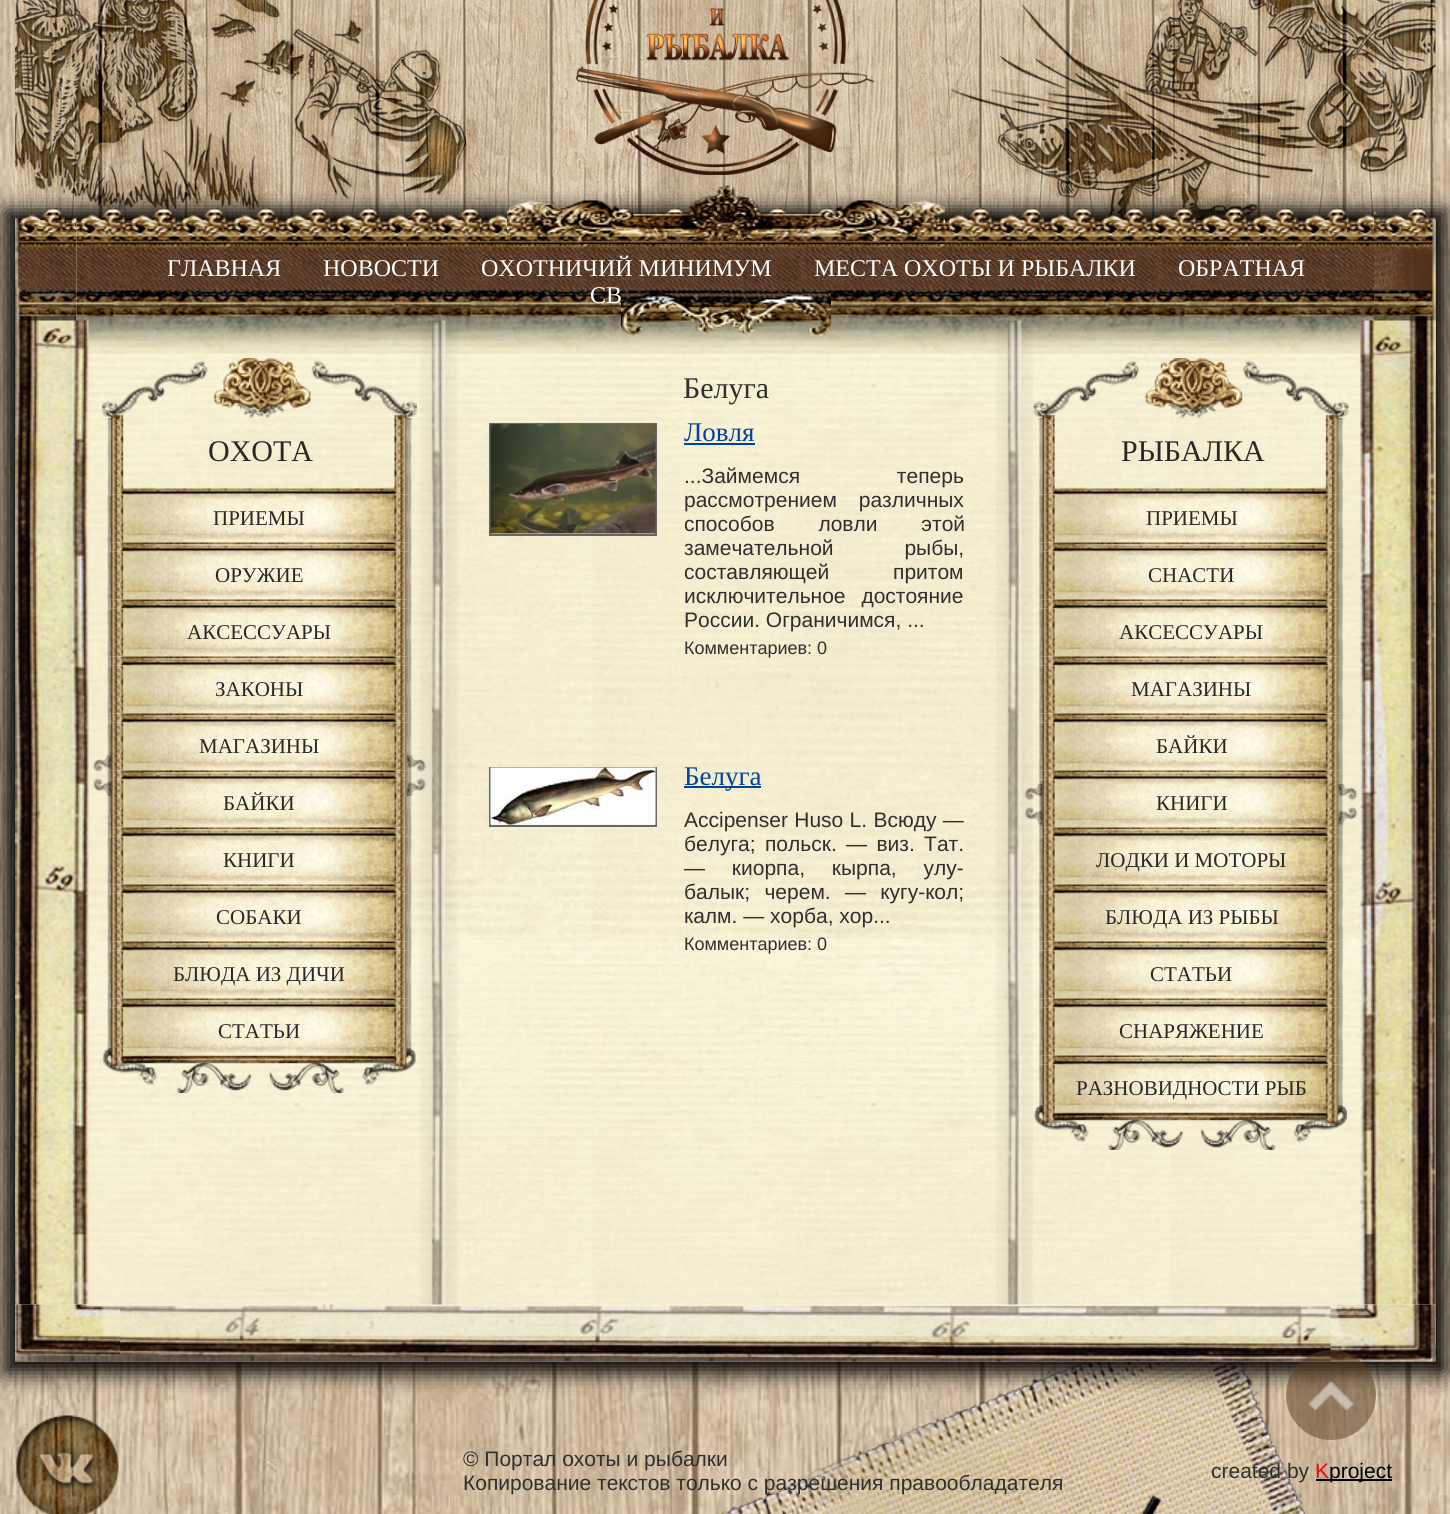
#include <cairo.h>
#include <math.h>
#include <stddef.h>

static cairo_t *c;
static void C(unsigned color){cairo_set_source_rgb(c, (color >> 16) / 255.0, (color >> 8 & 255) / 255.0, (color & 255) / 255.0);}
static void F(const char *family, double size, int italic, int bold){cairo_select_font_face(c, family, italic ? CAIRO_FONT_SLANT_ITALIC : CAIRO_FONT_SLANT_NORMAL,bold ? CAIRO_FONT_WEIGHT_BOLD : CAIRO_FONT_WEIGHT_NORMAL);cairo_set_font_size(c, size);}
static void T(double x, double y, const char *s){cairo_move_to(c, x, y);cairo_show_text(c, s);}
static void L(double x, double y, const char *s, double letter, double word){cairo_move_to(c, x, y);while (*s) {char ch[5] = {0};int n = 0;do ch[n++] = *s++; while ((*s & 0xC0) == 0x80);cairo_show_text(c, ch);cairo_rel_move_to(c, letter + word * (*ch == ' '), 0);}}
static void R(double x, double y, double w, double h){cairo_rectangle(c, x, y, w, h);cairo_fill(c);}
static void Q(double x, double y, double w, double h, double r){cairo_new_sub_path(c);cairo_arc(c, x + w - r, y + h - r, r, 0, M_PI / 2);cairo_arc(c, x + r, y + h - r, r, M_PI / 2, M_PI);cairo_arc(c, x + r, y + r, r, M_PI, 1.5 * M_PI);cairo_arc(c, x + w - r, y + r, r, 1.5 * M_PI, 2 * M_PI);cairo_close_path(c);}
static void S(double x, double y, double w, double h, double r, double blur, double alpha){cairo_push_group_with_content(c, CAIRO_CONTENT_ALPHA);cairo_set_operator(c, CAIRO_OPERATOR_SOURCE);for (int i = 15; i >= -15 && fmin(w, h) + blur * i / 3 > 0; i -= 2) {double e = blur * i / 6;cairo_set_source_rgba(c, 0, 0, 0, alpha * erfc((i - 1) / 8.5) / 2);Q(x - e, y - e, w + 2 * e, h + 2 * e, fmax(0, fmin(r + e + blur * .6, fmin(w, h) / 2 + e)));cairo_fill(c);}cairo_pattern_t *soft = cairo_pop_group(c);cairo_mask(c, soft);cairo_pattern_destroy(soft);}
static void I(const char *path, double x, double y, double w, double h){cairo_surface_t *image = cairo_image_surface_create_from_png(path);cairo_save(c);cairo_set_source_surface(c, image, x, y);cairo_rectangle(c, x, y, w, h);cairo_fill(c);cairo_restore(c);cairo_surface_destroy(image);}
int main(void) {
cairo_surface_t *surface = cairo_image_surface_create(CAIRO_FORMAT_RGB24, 1450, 1514);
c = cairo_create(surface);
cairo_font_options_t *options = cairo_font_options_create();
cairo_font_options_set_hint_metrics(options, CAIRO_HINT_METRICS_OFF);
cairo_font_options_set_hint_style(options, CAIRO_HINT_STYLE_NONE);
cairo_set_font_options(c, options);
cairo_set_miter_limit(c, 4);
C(0xffffff);
cairo_paint(c);
I("1.png",0,0,1450,1514);
I("2.png",651,1361,655,153);
I("3.png",15,0,1421,220);
I("4.png",576,0,299,175);
C(0x000000);
S(5,210,1441,1163,0,10.5,1);
I("6.png",15,220,1421,1142);
I("7.png",15,208,62,113);
I("8.png",76,205,1298,149);
I("5.png",507,185,438,59);
F("Liberation Serif",24,0,0);
C(0xffffff);
T(167,276,"ГЛАВНАЯ");
T(323,276,"НОВОСТИ");
T(481,276,"ОХОТНИЧИЙ МИНИМУМ");
T(814,276,"МЕСТА ОХОТЫ И РЫБАЛКИ");
T(1178,276,"ОБРАТНАЯ");
T(590,303,"СВ");
I("9.png",1374,208,62,165);
I("10.png",621,293,210,43);
I("11.png",15,320,74,985);
I("12.png",1360,320,76,1019);
I("13.png",420,320,38,985);
I("14.png",102,358,315,137);
F("Liberation Serif",30,0,0);
C(0x292826);
T(208,461,"ОХОТА");
I("15.png",93,755,333,41);
I("16.png",106,494,306,49);
F("Liberation Serif",21,0,0);
T(213,525,"ПРИЕМЫ");
I("17.png",107,542,305,10);
I("18.png",106,551,306,49);
T(215,582,"ОРУЖИЕ");
I("19.png",107,599,305,10);
I("20.png",106,608,306,49);
T(187,639,"АКСЕССУАРЫ");
I("21.png",107,656,305,10);
I("22.png",106,665,306,49);
T(215,696,"ЗАКОНЫ");
I("23.png",107,713,305,10);
I("24.png",106,722,306,49);
T(199,753,"МАГАЗИНЫ");
I("25.png",107,770,305,10);
I("26.png",106,779,306,49);
T(223,810,"БАЙКИ");
I("27.png",107,827,305,10);
I("28.png",106,836,306,49);
T(223,867,"КНИГИ");
I("29.png",107,884,305,10);
I("30.png",106,893,306,49);
T(216,924,"СОБАКИ");
I("31.png",107,941,305,10);
I("32.png",106,950,306,49);
T(173,981,"БЛЮДА ИЗ ДИЧИ");
I("33.png",107,998,305,10);
I("35.png",102,1048,314,45);
I("34.png",106,1007,306,49);
T(218,1038,"СТАТЬИ");
F("Liberation Serif",30,0,0);
C(0x2f2f2f);
T(683,398,"Белуга");
cairo_rectangle(c,490,424,166,111);
C(0x666666);
cairo_stroke(c);
I("36.png",490,424,166,110);
F("Liberation Serif",27,0,0);
C(0x0042a0);
T(684,441,"Ловля");
R(684,443,71,2);
F("Liberation Sans",21,0,0);
C(0x2f2f2f);
L(684,483,"...Займемся теперь",0,91);
L(684,507,"рассмотрением различных",0,16);
L(684,531,"способов ловли этой",0,38);
L(684,555,"замечательной рыбы,",0,65);
L(684,579,"составляющей притом",0,58);
L(684,603,"исключительное достояние",0,10);
T(684,627,"России. Ограничимся, ...");
F("Liberation Sans",18,0,0);
T(684,654,"Комментариев: 0");
cairo_rectangle(c,490,768,166,58);
C(0x666666);
cairo_stroke(c);
I("37.png",490,767,166,58);
C(0x0042a0);
R(684,786,77,2);
F("Liberation Serif",27,0,0);
T(684,785,"Белуга");
F("Liberation Sans",21,0,0);
C(0x2f2f2f);
L(684,827,"Accipenser Huso L. Всюду —",0,.5);
L(684,851,"белуга; польск. — виз. Тат.",0,3.5);
L(684,875,"— киорпа, кырпа, улу-",0,21);
L(684,899,"балык; черем. — кугу-кол;",0,8.5);
T(684,923,"калм. — хорба, хор...");
F("Liberation Sans",18,0,0);
T(684,950,"Комментариев: 0");
I("38.png",996,320,37,985);
I("39.png",1033,358,316,137);
F("Liberation Serif",30,0,0);
C(0x292826);
T(1121,461,"РЫБАЛКА");
I("40.png",1024,784,334,41);
I("41.png",1038,494,306,49);
F("Liberation Serif",21,0,0);
T(1146,525,"ПРИЕМЫ");
I("42.png",1038,542,306,10);
I("43.png",1038,551,306,49);
T(1148,582,"СНАСТИ");
I("44.png",1038,599,306,10);
I("45.png",1038,608,306,49);
T(1119,639,"АКСЕССУАРЫ");
I("46.png",1038,656,306,10);
I("47.png",1038,665,306,49);
T(1131,696,"МАГАЗИНЫ");
I("48.png",1038,713,306,10);
I("49.png",1038,722,306,49);
T(1156,753,"БАЙКИ");
I("50.png",1038,770,306,10);
I("51.png",1038,779,306,49);
T(1156,810,"КНИГИ");
I("52.png",1038,827,306,10);
I("53.png",1038,836,306,49);
T(1096,867,"ЛОДКИ И МОТОРЫ");
I("54.png",1038,884,306,10);
I("55.png",1038,893,306,49);
T(1105,924,"БЛЮДА ИЗ РЫБЫ");
I("56.png",1038,941,306,10);
I("57.png",1038,950,306,49);
T(1150,981,"СТАТЬИ");
I("58.png",1038,998,306,10);
I("59.png",1038,1007,306,49);
T(1119,1038,"СНАРЯЖЕНИЕ");
I("60.png",1038,1055,306,10);
I("62.png",1033,1105,314,45);
I("61.png",1038,1064,306,49);
T(1076,1095,"РАЗНОВИДНОСТИ РЫБ");
I("63.png",15,1304,1421,58);
I("64.png",15,1304,105,58);
I("65.png",1330,1304,106,58);
I("66.png",15,1415,104,99);
F("Liberation Sans",21,0,0);
C(0x2f2f2f);
T(463,1466,"© Портал охоты и рыбалки");
T(463,1490,"Копирование текстов только с разрешения правообладателя");
T(1211,1478,"created by");
C(0xff0000);
T(1315,1478,"K");
C(0x000000);
R(1316,1479,76,2);
T(1329,1478,"project");
cairo_set_source_rgba(c,0.353,0.247,0.133,0.5);
cairo_new_path(c);
cairo_arc(c,1331,1395,45,0,2 * M_PI);
cairo_fill(c);
I("67.png",1308,1381,47,29);
cairo_surface_write_to_png(surface, "o.png");
cairo_font_options_destroy(options);
cairo_destroy(c);
cairo_surface_destroy(surface);
return 0;
}
